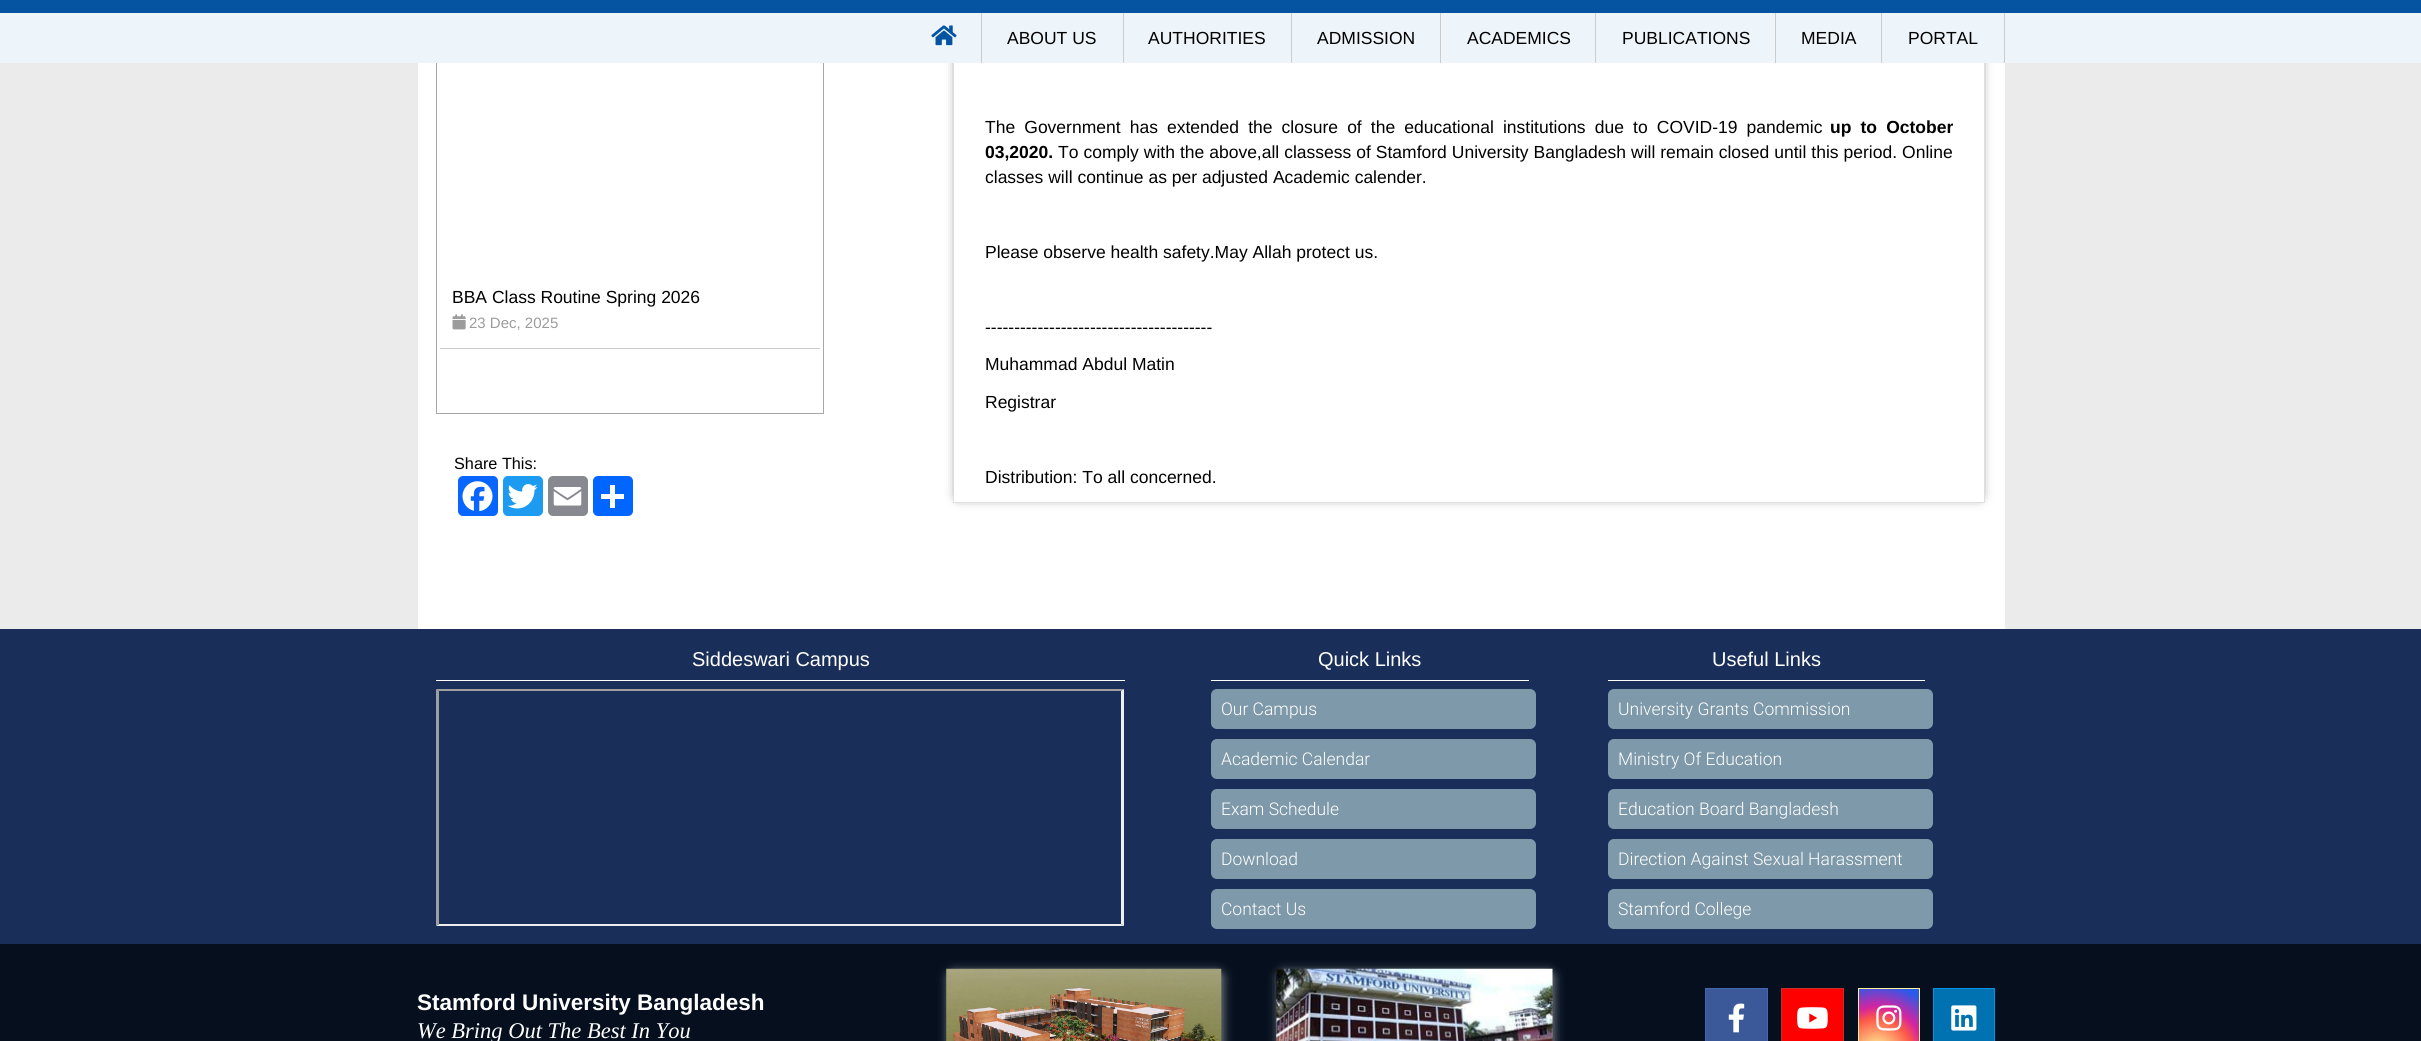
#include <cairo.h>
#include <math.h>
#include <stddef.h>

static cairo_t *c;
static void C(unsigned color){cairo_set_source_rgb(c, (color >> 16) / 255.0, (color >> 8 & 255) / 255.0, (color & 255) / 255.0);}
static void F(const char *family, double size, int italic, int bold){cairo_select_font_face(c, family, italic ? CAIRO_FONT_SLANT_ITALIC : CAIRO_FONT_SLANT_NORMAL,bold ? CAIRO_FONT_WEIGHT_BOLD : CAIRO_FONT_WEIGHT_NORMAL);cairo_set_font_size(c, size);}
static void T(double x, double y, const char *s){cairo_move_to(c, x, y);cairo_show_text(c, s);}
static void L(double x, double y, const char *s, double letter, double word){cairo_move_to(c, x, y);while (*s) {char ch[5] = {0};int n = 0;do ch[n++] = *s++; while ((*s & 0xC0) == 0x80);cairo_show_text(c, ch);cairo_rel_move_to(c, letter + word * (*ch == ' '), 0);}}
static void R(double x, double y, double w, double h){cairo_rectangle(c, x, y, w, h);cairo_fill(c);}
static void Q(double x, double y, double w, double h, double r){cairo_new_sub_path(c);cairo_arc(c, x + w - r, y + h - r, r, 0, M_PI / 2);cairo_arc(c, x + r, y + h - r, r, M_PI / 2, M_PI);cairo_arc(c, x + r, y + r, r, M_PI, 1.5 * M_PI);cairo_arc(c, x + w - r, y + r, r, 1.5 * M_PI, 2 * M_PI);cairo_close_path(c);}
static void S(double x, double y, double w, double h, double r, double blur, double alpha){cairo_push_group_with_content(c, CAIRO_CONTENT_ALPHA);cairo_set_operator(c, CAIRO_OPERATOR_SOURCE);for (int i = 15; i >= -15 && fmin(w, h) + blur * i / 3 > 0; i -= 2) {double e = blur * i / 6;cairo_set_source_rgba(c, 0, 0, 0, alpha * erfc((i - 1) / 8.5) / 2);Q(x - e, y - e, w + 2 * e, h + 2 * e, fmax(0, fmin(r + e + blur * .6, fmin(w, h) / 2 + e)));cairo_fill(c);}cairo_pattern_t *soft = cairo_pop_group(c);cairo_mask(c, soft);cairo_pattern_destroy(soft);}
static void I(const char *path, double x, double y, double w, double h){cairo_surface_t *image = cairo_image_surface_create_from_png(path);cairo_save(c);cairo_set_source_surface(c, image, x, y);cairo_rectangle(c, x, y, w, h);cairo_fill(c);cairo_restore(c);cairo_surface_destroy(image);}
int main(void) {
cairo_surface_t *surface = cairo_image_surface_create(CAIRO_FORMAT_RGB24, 2421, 1041);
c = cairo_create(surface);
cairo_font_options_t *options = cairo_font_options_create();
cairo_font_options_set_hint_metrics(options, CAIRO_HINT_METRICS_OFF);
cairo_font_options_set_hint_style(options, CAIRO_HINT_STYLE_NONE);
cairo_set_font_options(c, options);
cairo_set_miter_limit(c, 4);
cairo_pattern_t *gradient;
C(0xebebeb);
cairo_paint(c);
C(0xffffff);
R(418,63,1587,566);
cairo_rectangle(c,436.5,-.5,387,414);
C(0xa7a7a7);
cairo_set_line_width(c,1);
cairo_stroke(c);
C(0x292929);
S(959,-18,1020,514,0,6,1);
C(0xffffff);
R(954,63,1030,439);
cairo_rectangle(c,953.5,-.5,1031,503);
C(0xdfdfdf);
cairo_stroke(c);
C(0xeef5fa);
R(0,13,2421,50);
C(0x0454a2);
R(0,0,2421,13);
C(0xcccccc);
R(981,13,1,50);
I("1.png",931,25,26,21);
R(1123,13,1,50);
F("Liberation Sans",17.5,0,0);
C(0x000000);
T(1007,44,"ABOUT US");
C(0xcccccc);
R(1291,13,1,50);
C(0x000000);
T(1148,44,"AUTHORITIES");
C(0xcccccc);
R(1440,13,1,50);
C(0x000000);
T(1317,44,"ADMISSION");
C(0xcccccc);
R(1595,13,1,50);
C(0x000000);
T(1467,44,"ACADEMICS");
C(0xcccccc);
R(1775,13,1,50);
C(0x000000);
T(1622,44,"PUBLICATIONS");
C(0xcccccc);
R(1881,13,1,50);
C(0x000000);
T(1801,44,"MEDIA");
C(0xcccccc);
R(2004,13,1,50);
C(0x000000);
T(1908,44,"PORTAL");
C(0xcccccc);
R(440,348,380,1);
C(0x000000);
T(452,303,"BBA Class Routine Spring 2026");
I("2.png",452,314,14,16);
F("Liberation Sans",15,0,0);
C(0x9c9c9d);
T(469,328,"23 Dec, 2025");
F("Liberation Sans",16.25,0,0);
C(0x000000);
T(454,469,"Share This:");
C(0x0866ff);
Q(458,476,40,40,5);
cairo_fill(c);
I("3.png",462,481,31,31);
C(0x1d9bf0);
Q(503,476,40,40,5);
cairo_fill(c);
I("4.png",507,484,31,25);
C(0x888990);
Q(548,476,40,40,5);
cairo_fill(c);
I("5.png",553,487,29,19);
C(0x0166ff);
Q(593,476,40,40,5);
cairo_fill(c);
C(0xffffff);
R(610,485,5,23);
R(601,494,23,5);
F("Liberation Sans",17.5,0,0);
C(0x000000);
L(985,133,"The Government has extended the closure of the educational institutions due to COVID-19 pandemic",0,4.25);
F("Liberation Sans",17.5,0,1);
L(1830,133,"up to October",0,4.25);
T(985,158,"03,2020.");
F("Liberation Sans",17.5,0,0);
L(1058,158,"To comply with the above,all classess of Stamford University Bangladesh will remain closed until this period. Online",0,.1);
T(985,183,"classes will continue as per adjusted Academic calender.");
T(985,258,"Please observe health safety.May Allah protect us.");
T(985,333,"---------------------------------------");
T(985,370,"Muhammad Abdul Matin");
T(985,408,"Registrar");
T(985,483,"Distribution: To all concerned.");
C(0x050f1e);
R(0,944,2421,97);
C(0x192f59);
R(0,629,2421,315);
C(0xffffff);
R(436,680,689,1);
F("Liberation Sans",20,0,0);
T(692,666,"Siddeswari Campus");
C(0x9f9f9f);
cairo_new_path(c);
cairo_move_to(c,436,689);
cairo_line_to(c,1124,689);
cairo_line_to(c,1121,691);
cairo_line_to(c,439,691);
cairo_close_path(c);
cairo_fill(c);
C(0xeeeeee);
cairo_new_path(c);
cairo_move_to(c,1124,689);
cairo_line_to(c,1124,926);
cairo_line_to(c,1121,924);
cairo_line_to(c,1121,691);
cairo_close_path(c);
cairo_fill(c);
cairo_new_path(c);
cairo_move_to(c,1124,926);
cairo_line_to(c,436,926);
cairo_line_to(c,439,924);
cairo_line_to(c,1121,924);
cairo_close_path(c);
cairo_fill(c);
C(0x9f9f9f);
cairo_new_path(c);
cairo_move_to(c,436,926);
cairo_line_to(c,436,689);
cairo_line_to(c,439,691);
cairo_line_to(c,439,924);
cairo_close_path(c);
cairo_fill(c);
C(0xffffff);
R(1211,680,318,1);
T(1318,666,"Quick Links");
C(0x7e99a9);
Q(1211,689,325,40,6);
cairo_fill(c);
F("Roboto Light",17.5,0,0);
C(0xffffff);
T(1221,715,"Our Campus");
C(0x7e99a9);
Q(1211,739,325,40,6);
cairo_fill(c);
C(0xffffff);
T(1221,765,"Academic Calendar");
C(0x7e99a9);
Q(1211,789,325,40,6);
cairo_fill(c);
C(0xffffff);
T(1221,815,"Exam Schedule");
C(0x7e99a9);
Q(1211,839,325,40,6);
cairo_fill(c);
C(0xffffff);
T(1221,865,"Download");
C(0x7e99a9);
Q(1211,889,325,40,6);
cairo_fill(c);
C(0xffffff);
T(1221,915,"Contact Us");
R(1608,680,317,1);
F("Liberation Sans",20,0,0);
T(1712,666,"Useful Links");
C(0x7e99a9);
Q(1608,689,325,40,6);
cairo_fill(c);
F("Roboto Light",17.5,0,0);
C(0xffffff);
T(1618,715,"University Grants Commission");
C(0x7e99a9);
Q(1608,739,325,40,6);
cairo_fill(c);
C(0xffffff);
T(1618,765,"Ministry Of Education");
C(0x7e99a9);
Q(1608,789,325,40,6);
cairo_fill(c);
C(0xffffff);
T(1618,815,"Education Board Bangladesh");
C(0x7e99a9);
Q(1608,839,325,40,6);
cairo_fill(c);
C(0xffffff);
T(1618,865,"Direction Against Sexual Harassment");
C(0x7e99a9);
Q(1608,889,325,40,6);
cairo_fill(c);
C(0xffffff);
T(1618,915,"Stamford College");
F("Liberation Sans",22.5,0,1);
T(417,1010,"Stamford University Bangladesh");
F("Liberation Serif",22.5,1,0);
T(417,1038,"We Bring Out The Best In You");
C(0xffffff);
S(948,971,275,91,6,5,.5);
I("6.png",946,968,276,73);
S(1278,971,276,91,6,5,.5);
I("7.png",1276,968,277,73);
C(0x3b5998);
cairo_rectangle(c,1705.5,988.5,62,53);
cairo_fill_preserve(c);
C(0x4267b2);
cairo_stroke(c);
I("8.png",1728,1003,17,30);
C(0xff0000);
cairo_rectangle(c,1781.5,988.5,62,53);
cairo_fill_preserve(c);
C(0xc4302b);
cairo_stroke(c);
I("9.png",1797,1007,31,22);
gradient = cairo_pattern_create_radial(1877,1053,0,1877,1053,77);
cairo_pattern_add_color_stop_rgba(gradient,0,0.992,0.957,0.592,1);
cairo_pattern_add_color_stop_rgba(gradient,.05,0.992,0.957,0.592,1);
cairo_pattern_add_color_stop_rgba(gradient,.45,0.992,0.349,0.286,1);
cairo_pattern_add_color_stop_rgba(gradient,.6,0.839,0.141,0.624,1);
cairo_pattern_add_color_stop_rgba(gradient,.9,0.157,0.353,0.922,1);
cairo_set_source(c,gradient);
cairo_pattern_destroy(gradient);
R(1859,989,60,52);
cairo_rectangle(c,1858.5,988.5,61,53);
C(0xfdf497);
cairo_stroke(c);
I("10.png",1876,1005,26,26);
C(0x0072b1);
cairo_rectangle(c,1933.5,988.5,61,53);
cairo_fill_preserve(c);
C(0x0095e6);
cairo_stroke(c);
I("11.png",1951,1005,26,26);
cairo_surface_write_to_png(surface, "o.png");
cairo_font_options_destroy(options);
cairo_destroy(c);
cairo_surface_destroy(surface);
return 0;
}
